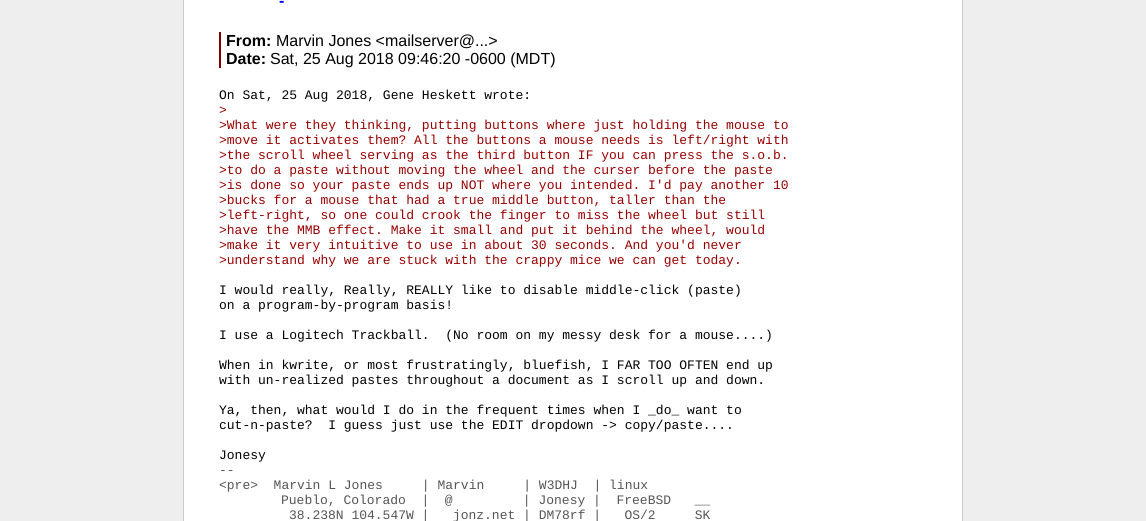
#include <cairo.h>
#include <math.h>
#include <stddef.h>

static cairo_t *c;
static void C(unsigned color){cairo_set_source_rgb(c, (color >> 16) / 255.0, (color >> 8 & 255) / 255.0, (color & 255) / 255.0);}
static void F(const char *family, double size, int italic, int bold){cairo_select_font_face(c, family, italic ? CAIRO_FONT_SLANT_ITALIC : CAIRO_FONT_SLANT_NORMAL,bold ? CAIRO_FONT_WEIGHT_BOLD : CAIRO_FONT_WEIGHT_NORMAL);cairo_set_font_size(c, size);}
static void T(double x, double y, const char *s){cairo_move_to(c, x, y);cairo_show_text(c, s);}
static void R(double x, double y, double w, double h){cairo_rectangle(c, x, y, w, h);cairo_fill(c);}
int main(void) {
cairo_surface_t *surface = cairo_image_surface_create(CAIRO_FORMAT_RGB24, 1146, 521);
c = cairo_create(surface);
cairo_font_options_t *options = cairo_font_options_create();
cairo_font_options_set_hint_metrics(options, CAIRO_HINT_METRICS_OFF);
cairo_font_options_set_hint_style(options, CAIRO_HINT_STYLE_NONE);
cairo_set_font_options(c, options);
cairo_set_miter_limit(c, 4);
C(0xeeeeee);
cairo_paint(c);
C(0xffffff);
cairo_rectangle(c,183.5,-.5,779,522);
cairo_fill_preserve(c);
C(0xcccccc);
cairo_set_line_width(c,1);
cairo_stroke(c);
F("Liberation Sans",16,0,1);
C(0x0000ff);
T(279,6,"-");
C(0x800000);
R(219,32,2,36);
C(0x000000);
T(226,46,"From:");
F("Liberation Sans",16,0,0);
T(276,46,"Marvin Jones <mailserver@...>");
F("Liberation Sans",16,0,1);
T(226,64,"Date:");
F("Liberation Sans",16,0,0);
T(270,64,"Sat, 25 Aug 2018 09:46:20 -0600 (MDT)");
F("Liberation Mono",13,0,0);
T(219,99,"On Sat, 25 Aug 2018, Gene Heskett wrote:");
C(0x990000);
T(219,114,">");
T(219,129,">What were they thinking, putting buttons where just holding the mouse to");
T(219,144,">move it activates them? All the buttons a mouse needs is left/right with");
T(219,159,">the scroll wheel serving as the third button IF you can press the s.o.b.");
T(219,174,">to do a paste without moving the wheel and the curser before the paste");
T(219,189,">is done so your paste ends up NOT where you intended. I'd pay another 10");
T(219,204,">bucks for a mouse that had a true middle button, taller than the");
T(219,219,">left-right, so one could crook the finger to miss the wheel but still");
T(219,234,">have the MMB effect. Make it small and put it behind the wheel, would");
T(219,249,">make it very intuitive to use in about 30 seconds. And you'd never");
T(219,264,">understand why we are stuck with the crappy mice we can get today.");
C(0x000000);
T(219,294,"I would really, Really, REALLY like to disable middle-click (paste)");
T(219,309,"on a program-by-program basis!");
T(219,339,"I use a Logitech Trackball.  (No room on my messy desk for a mouse....)");
T(219,369,"When in kwrite, or most frustratingly, bluefish, I FAR TOO OFTEN end up");
T(219,384,"with un-realized pastes throughout a document as I scroll up and down.");
T(219,414,"Ya, then, what would I do in the frequent times when I _do_ want to");
T(219,429,"cut-n-paste?  I guess just use the EDIT dropdown -> copy/paste....");
T(219,459,"Jonesy");
C(0x555555);
T(219,474,"--");
T(219,489,"<pre>  Marvin L Jones     | Marvin     | W3DHJ  | linux");
T(281,504,"Pueblo, Colorado  |  @         | Jonesy |  FreeBSD   __");
T(289,519,"38.238N 104.547W |   jonz.net | DM78rf |   OS/2     SK");
cairo_surface_write_to_png(surface, "o.png");
cairo_font_options_destroy(options);
cairo_destroy(c);
cairo_surface_destroy(surface);
return 0;
}
